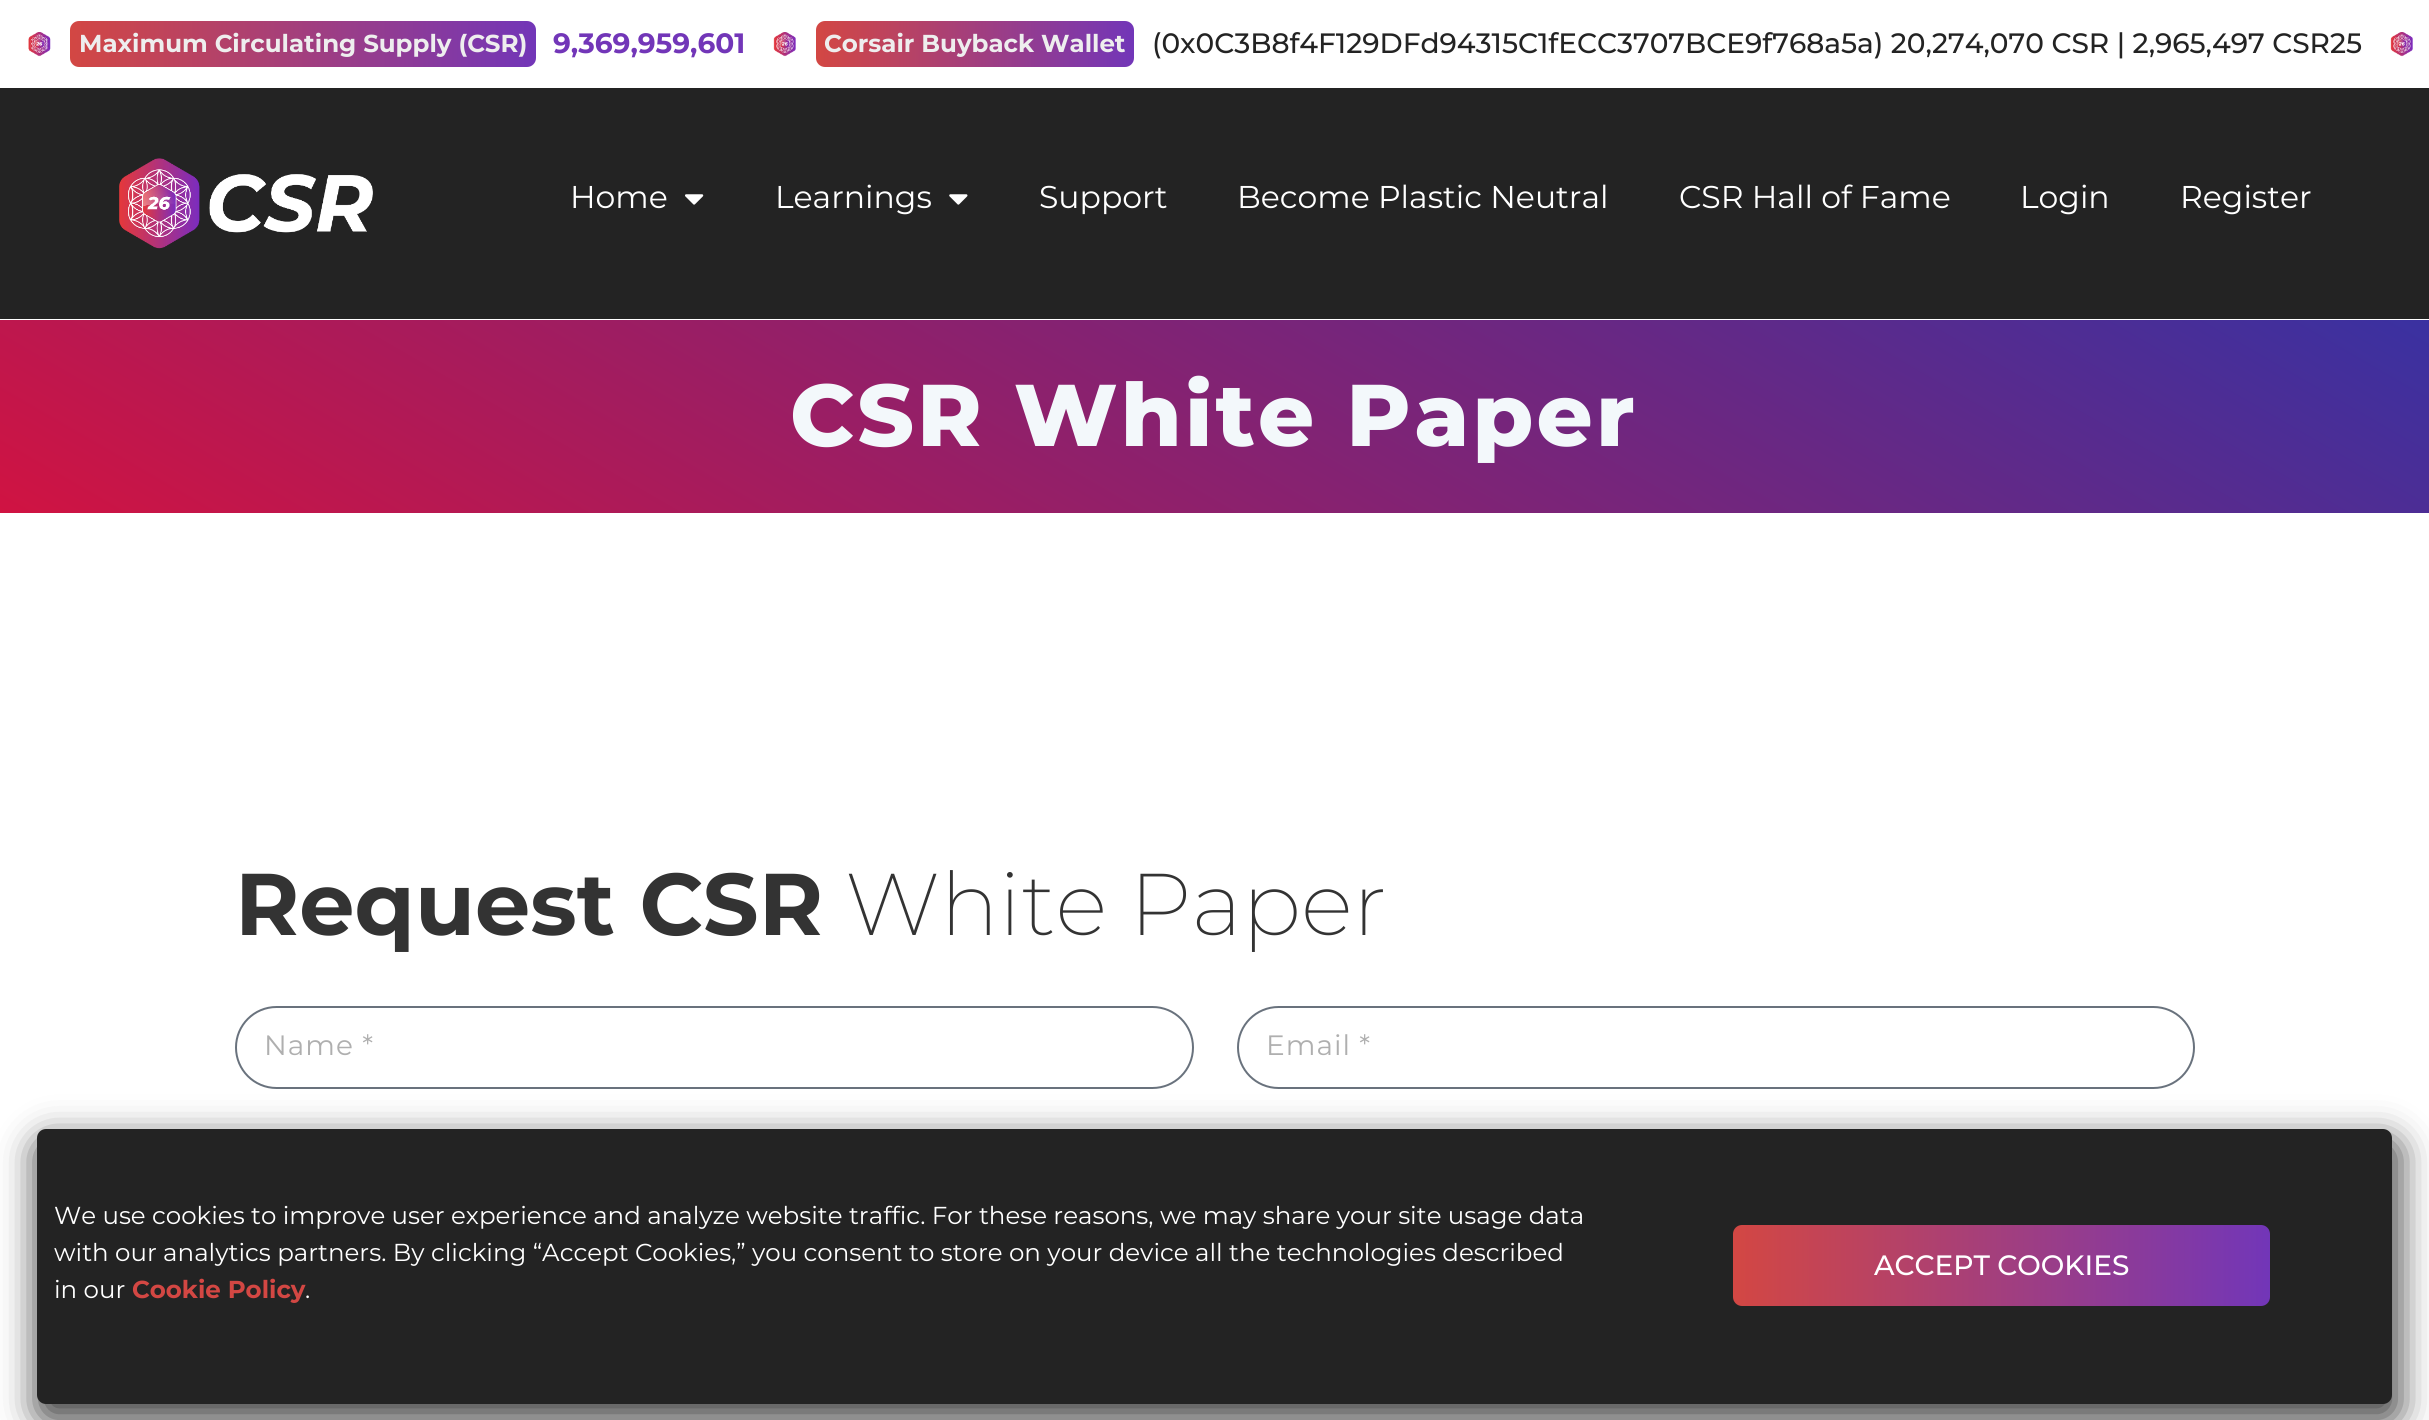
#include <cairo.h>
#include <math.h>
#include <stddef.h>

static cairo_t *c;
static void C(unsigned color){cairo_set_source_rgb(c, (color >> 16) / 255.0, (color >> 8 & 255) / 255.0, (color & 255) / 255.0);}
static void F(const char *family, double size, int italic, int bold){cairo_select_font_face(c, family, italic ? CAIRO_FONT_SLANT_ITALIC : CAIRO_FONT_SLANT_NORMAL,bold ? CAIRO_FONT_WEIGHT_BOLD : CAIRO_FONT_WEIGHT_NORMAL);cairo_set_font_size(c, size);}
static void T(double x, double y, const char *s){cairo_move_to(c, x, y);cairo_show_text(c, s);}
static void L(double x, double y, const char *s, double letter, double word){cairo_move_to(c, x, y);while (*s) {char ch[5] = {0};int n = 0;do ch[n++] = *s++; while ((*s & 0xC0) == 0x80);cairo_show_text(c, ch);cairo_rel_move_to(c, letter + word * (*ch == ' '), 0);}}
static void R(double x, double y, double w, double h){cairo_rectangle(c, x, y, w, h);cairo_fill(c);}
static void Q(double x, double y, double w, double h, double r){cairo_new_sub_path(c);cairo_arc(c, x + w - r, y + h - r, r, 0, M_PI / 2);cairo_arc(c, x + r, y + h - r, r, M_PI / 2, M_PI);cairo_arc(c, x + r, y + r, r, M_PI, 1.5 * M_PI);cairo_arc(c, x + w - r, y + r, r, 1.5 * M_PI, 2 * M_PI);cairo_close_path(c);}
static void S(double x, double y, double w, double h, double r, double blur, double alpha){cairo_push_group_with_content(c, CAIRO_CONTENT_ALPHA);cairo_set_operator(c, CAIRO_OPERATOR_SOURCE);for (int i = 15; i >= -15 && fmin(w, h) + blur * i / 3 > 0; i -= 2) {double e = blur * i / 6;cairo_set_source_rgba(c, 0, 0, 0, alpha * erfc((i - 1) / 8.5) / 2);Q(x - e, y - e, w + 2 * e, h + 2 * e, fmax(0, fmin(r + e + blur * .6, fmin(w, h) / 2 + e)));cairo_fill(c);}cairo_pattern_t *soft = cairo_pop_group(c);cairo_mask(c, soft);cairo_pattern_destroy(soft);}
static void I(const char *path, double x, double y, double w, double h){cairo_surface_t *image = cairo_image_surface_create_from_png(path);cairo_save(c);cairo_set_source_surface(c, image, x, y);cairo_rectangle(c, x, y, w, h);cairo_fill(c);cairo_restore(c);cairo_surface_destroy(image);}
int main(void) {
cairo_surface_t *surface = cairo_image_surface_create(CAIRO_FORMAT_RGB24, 2429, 1420);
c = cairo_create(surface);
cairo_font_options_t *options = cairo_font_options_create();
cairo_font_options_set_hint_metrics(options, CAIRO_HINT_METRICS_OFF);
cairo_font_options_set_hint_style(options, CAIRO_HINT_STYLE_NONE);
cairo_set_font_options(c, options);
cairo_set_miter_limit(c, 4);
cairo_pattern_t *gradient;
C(0xffffff);
cairo_paint(c);
I("1.png",28,32,23,25);
gradient = cairo_pattern_create_linear(70,44,536,44);
cairo_pattern_add_color_stop_rgba(gradient,0,0.827,0.278,0.263,1);
cairo_pattern_add_color_stop_rgba(gradient,1,0.447,0.212,0.722,1);
cairo_set_source(c,gradient);
cairo_pattern_destroy(gradient);
Q(70,21,466,46,9);
cairo_fill(c);
F("Montserrat",24.5,0,1);
C(0xeeeeee);
T(79,52,"Maximum Circulating Supply (CSR)");
F("Montserrat",28,0,1);
C(0x7236b8);
T(553,53,"9,369,959,601");
I("2.png",773,32,23,25);
gradient = cairo_pattern_create_linear(816,44,1134,44);
cairo_pattern_add_color_stop_rgba(gradient,0,0.827,0.278,0.263,1);
cairo_pattern_add_color_stop_rgba(gradient,1,0.447,0.212,0.722,1);
cairo_set_source(c,gradient);
cairo_pattern_destroy(gradient);
Q(816,21,318,46,9);
cairo_fill(c);
F("Montserrat",24.5,0,1);
C(0xeeeeee);
T(824,52,"Corsair Buyback Wallet");
F("Montserrat Medium",28,0,0);
C(0x232323);
T(1152,53,"(0x0C3B8f4F129DFd94315C1fECC3707BCE9f768a5a) 20,274,070 CSR | 2,965,497 CSR25");
I("3.png",2390,32,23,25);
R(0,88,2429,231);
I("4.png",119,158,254,91);
F("Montserrat",31.5,0,0);
C(0xffffff);
T(570,208,"Home");
I("5.png",685,194,19,11);
T(775,208,"Learnings");
I("6.png",949,194,19,11);
T(1039,208,"Support");
T(1237,208,"Become Plastic Neutral");
T(1679,208,"CSR Hall of Fame");
T(2020,208,"Login");
T(2180,208,"Register");
gradient = cairo_pattern_create_linear(1560,-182,869,1015);
cairo_pattern_add_color_stop_rgba(gradient,0,0.227,0.192,0.631,1);
cairo_pattern_add_color_stop_rgba(gradient,1,0.816,0.075,0.259,1);
cairo_set_source(c,gradient);
cairo_pattern_destroy(gradient);
R(0,320,2429,193);
F("Montserrat ExtraBold",87.5,0,0);
C(0xf3f8fb);
L(790,446,"CSR White Paper",3.3,0);
F("Montserrat",87.5,0,1);
C(0x333333);
T(235,935,"Request CSR");
F("Montserrat ExtraLight",87.5,0,0);
T(845,935,"White Paper");
Q(236,1007,957,81,40.5);
C(0x69727d);
cairo_stroke(c);
F("Montserrat",28,0,0);
C(0xafafaf);
L(264,1055,"Name *",1,0);
Q(1238,1007,956,81,40.5);
C(0x69727d);
cairo_stroke(c);
C(0xafafaf);
L(1266,1055,"Email *",1,0);
C(0x000000);
S(35,1138,2366,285,14,17.5,.7);
C(0x232323);
Q(37,1129,2355,275,9);
cairo_fill(c);
F("Montserrat",24.5,0,0);
C(0xffffff);
T(54,1224,"We use cookies to improve user experience and analyze website traffic. For these reasons, we may share your site usage data");
T(54,1261,"with our analytics partners. By clicking “Accept Cookies,” you consent to store on your device all the technologies described");
T(54,1298,"in our");
F("Montserrat",24.5,0,1);
C(0xd34743);
T(132,1298,"Cookie Policy");
F("Montserrat",24.5,0,0);
C(0xffffff);
T(305,1298,".");
gradient = cairo_pattern_create_linear(1733,1265,2270,1265);
cairo_pattern_add_color_stop_rgba(gradient,0,0.827,0.278,0.263,1);
cairo_pattern_add_color_stop_rgba(gradient,1,0.447,0.212,0.722,1);
cairo_set_source(c,gradient);
cairo_pattern_destroy(gradient);
Q(1733,1225,537,81,9);
cairo_fill(c);
F("Montserrat Medium",28,0,0);
C(0xffffff);
T(1874,1275,"ACCEPT COOKIES");
cairo_surface_write_to_png(surface, "o.png");
cairo_font_options_destroy(options);
cairo_destroy(c);
cairo_surface_destroy(surface);
return 0;
}
